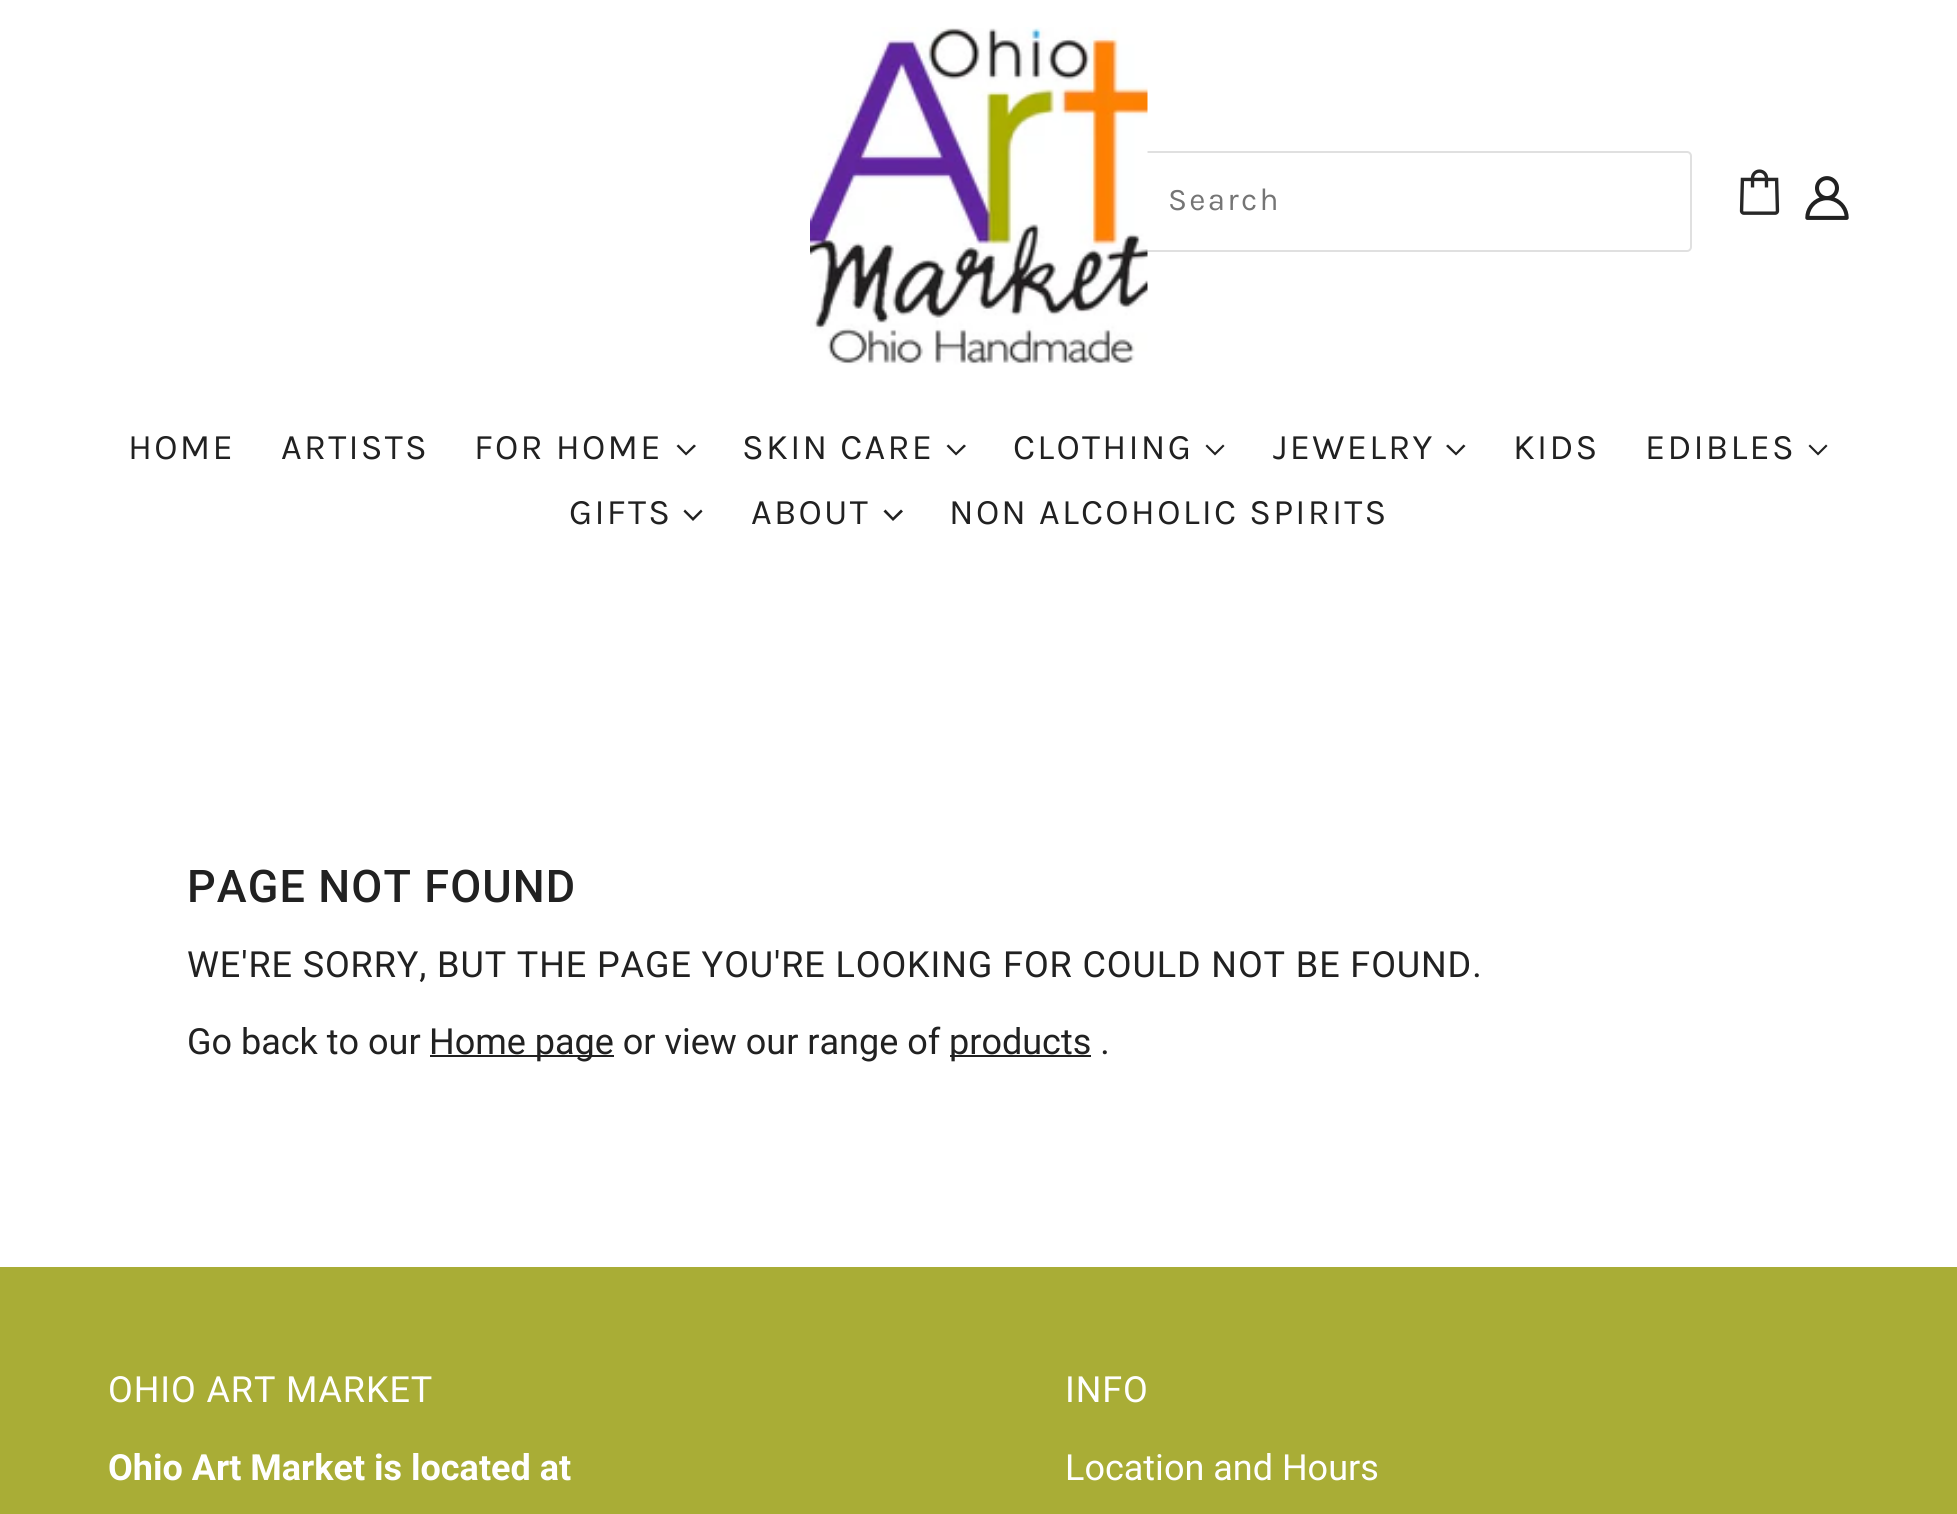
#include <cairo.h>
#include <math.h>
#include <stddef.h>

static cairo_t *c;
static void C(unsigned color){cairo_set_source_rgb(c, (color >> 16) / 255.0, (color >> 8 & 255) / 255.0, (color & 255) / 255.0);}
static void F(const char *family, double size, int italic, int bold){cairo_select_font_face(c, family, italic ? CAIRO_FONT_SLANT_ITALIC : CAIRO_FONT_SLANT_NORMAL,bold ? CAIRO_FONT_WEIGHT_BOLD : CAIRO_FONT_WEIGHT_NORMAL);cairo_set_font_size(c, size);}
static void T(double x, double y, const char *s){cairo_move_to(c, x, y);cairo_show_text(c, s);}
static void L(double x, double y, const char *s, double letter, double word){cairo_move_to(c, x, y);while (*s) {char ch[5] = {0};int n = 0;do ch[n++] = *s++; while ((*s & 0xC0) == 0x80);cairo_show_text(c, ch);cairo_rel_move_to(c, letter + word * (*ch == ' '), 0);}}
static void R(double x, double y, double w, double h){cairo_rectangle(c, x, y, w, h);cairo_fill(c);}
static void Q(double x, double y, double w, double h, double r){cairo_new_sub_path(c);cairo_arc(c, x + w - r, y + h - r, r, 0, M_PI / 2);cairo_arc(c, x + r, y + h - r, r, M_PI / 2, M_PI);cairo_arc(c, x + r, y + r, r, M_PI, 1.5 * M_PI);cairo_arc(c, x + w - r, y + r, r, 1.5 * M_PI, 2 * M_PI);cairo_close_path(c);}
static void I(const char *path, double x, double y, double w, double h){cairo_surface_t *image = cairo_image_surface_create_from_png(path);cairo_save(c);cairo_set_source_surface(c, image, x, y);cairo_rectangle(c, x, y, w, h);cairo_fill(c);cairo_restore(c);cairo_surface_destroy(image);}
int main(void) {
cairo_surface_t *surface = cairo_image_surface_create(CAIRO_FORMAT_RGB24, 1957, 1514);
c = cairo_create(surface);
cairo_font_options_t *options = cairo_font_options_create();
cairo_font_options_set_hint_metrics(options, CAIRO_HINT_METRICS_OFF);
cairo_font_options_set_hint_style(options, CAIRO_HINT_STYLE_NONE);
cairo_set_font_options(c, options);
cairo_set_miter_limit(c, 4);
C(0xffffff);
cairo_paint(c);
Q(1131,152,560,99,4);
C(0xe0e0e0);
cairo_stroke(c);
I("1.png",810,27,338,338);
F("Karla",31.5,0,0);
C(0x757575);
L(1168,210,"Search",2.25,0);
I("2.png",1739,169,41,46);
I("3.png",1805,176,44,44);
F("Karla",36,0,0);
C(0x212121);
L(128,459,"HOME",2.25,0);
L(281,459,"ARTISTS",2.25,0);
L(474,459,"FOR HOME",2.25,0);
cairo_new_path(c);
cairo_move_to(c,686,452.5);
cairo_line_to(c,694,444.5);
cairo_line_to(c,696,446);
cairo_line_to(c,686,455.5);
cairo_line_to(c,676.5,446);
cairo_line_to(c,678.5,444.5);
cairo_close_path(c);
cairo_fill(c);
L(742,459,"SKIN CARE",2.25,0);
cairo_new_path(c);
cairo_move_to(c,956,452.5);
cairo_line_to(c,964,444.5);
cairo_line_to(c,966,446);
cairo_line_to(c,956,455.5);
cairo_line_to(c,946.5,446);
cairo_line_to(c,948.5,444.5);
cairo_close_path(c);
cairo_fill(c);
L(1013,459,"CLOTHING",2.25,0);
cairo_new_path(c);
cairo_move_to(c,1215,452.5);
cairo_line_to(c,1223,444.5);
cairo_line_to(c,1224.5,446);
cairo_line_to(c,1215,455.5);
cairo_line_to(c,1205.5,446);
cairo_line_to(c,1207,444.5);
cairo_close_path(c);
cairo_fill(c);
L(1273,459,"JEWELRY",2.25,0);
cairo_new_path(c);
cairo_move_to(c,1456,452.5);
cairo_line_to(c,1463.5,444.5);
cairo_line_to(c,1465.5,446);
cairo_line_to(c,1456,455.5);
cairo_line_to(c,1446,446);
cairo_line_to(c,1448,444.5);
cairo_close_path(c);
cairo_fill(c);
L(1513,459,"KIDS",2.25,0);
L(1645,459,"EDIBLES",2.25,0);
cairo_new_path(c);
cairo_move_to(c,1818,452.5);
cairo_line_to(c,1826,444.5);
cairo_line_to(c,1827.5,446);
cairo_line_to(c,1818,455.5);
cairo_line_to(c,1808.5,446);
cairo_line_to(c,1810,444.5);
cairo_close_path(c);
cairo_fill(c);
L(569,524,"GIFTS",2.25,0);
cairo_new_path(c);
cairo_move_to(c,693,517.5);
cairo_line_to(c,701,509.5);
cairo_line_to(c,702.5,511.5);
cairo_line_to(c,693,521);
cairo_line_to(c,683.5,511.5);
cairo_line_to(c,685,509.5);
cairo_close_path(c);
cairo_fill(c);
L(751,524,"ABOUT",2.25,0);
cairo_new_path(c);
cairo_move_to(c,893,517.5);
cairo_line_to(c,901,509.5);
cairo_line_to(c,903,511.5);
cairo_line_to(c,893,521);
cairo_line_to(c,883.5,511.5);
cairo_line_to(c,885.5,509.5);
cairo_close_path(c);
cairo_fill(c);
L(949,524,"NON ALCOHOLIC SPIRITS",2.25,0);
F("Roboto Medium",45,0,0);
L(187,902,"PAGE NOT FOUND",1.1,0);
F("Roboto",36,0,0);
L(187,977,"WE'RE SORRY, BUT THE PAGE YOU'RE LOOKING FOR COULD NOT BE FOUND.",.9,0);
T(187,1054,"Go back to our");
R(430,1055,184,2);
T(429,1054,"Home page or view our range of");
R(950,1055,141,2);
T(949,1054,"products .");
C(0xa9ad36);
R(0,1267,1957,247);
C(0xffffff);
L(108,1402,"OHIO ART MARKET",.9,0);
F("Roboto",36,0,1);
T(108,1480,"Ohio Art Market is located at");
F("Roboto",36,0,0);
L(1065,1402,"INFO",.9,0);
T(1065,1480,"Location and Hours");
cairo_surface_write_to_png(surface, "o.png");
cairo_font_options_destroy(options);
cairo_destroy(c);
cairo_surface_destroy(surface);
return 0;
}
